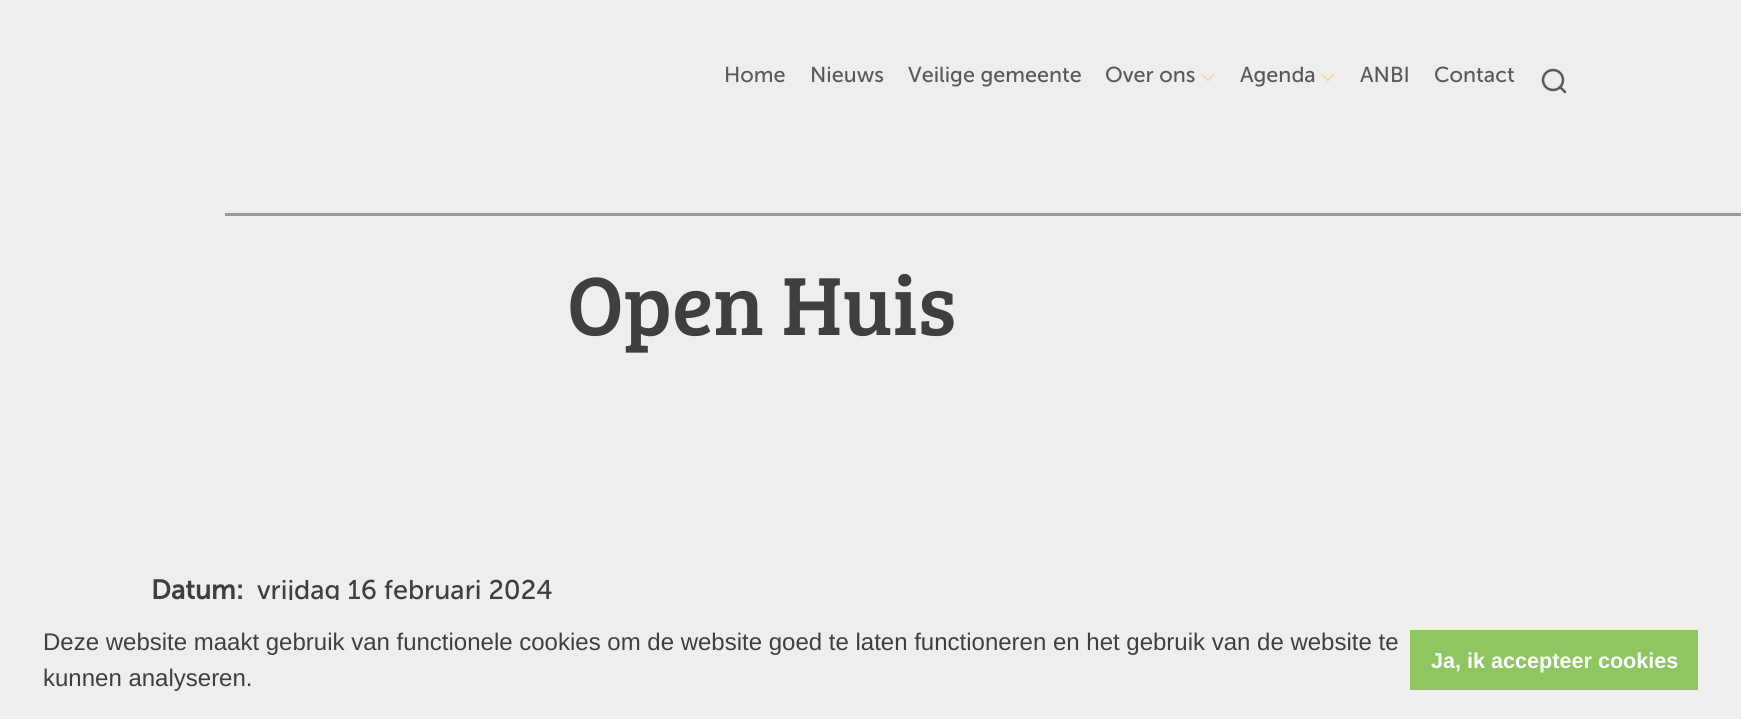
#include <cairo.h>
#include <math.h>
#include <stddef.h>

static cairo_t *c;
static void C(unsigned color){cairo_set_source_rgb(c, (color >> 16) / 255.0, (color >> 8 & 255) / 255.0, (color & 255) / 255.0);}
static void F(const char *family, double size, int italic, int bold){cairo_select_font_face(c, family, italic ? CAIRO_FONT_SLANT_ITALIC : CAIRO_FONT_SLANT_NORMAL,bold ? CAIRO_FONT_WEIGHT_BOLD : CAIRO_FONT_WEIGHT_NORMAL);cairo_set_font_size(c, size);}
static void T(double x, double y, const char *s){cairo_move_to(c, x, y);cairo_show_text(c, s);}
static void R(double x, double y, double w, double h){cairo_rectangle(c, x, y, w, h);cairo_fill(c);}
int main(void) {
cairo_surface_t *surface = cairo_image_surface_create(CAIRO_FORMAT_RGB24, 1741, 719);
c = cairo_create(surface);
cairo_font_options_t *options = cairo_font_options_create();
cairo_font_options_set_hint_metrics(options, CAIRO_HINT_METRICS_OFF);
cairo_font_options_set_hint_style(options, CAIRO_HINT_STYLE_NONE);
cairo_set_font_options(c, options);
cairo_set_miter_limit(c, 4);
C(0xeeeeee);
cairo_paint(c);
F("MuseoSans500",21.6,0,0);
C(0x595959);
T(724,82,"Home");
T(810,82,"Nieuws");
T(908,82,"Veilige gemeente");
T(1105,82,"Over ons");
C(0xfcd1a6);
cairo_new_path(c);
cairo_move_to(c,1214.5,74.5);
cairo_line_to(c,1208,81.5);
cairo_line_to(c,1207,80.5);
cairo_line_to(c,1213.5,73.5);
cairo_close_path(c);
cairo_fill(c);
cairo_new_path(c);
cairo_move_to(c,1209,80.5);
cairo_line_to(c,1208,81.5);
cairo_line_to(c,1201,74.5);
cairo_line_to(c,1202,73.5);
cairo_close_path(c);
cairo_fill(c);
C(0x595959);
T(1240,82,"Agenda");
C(0xfcd1a6);
cairo_new_path(c);
cairo_move_to(c,1334.5,74.5);
cairo_line_to(c,1328,81.5);
cairo_line_to(c,1326.5,80.5);
cairo_line_to(c,1333.5,73.5);
cairo_close_path(c);
cairo_fill(c);
cairo_new_path(c);
cairo_move_to(c,1329,80.5);
cairo_line_to(c,1328,81.5);
cairo_line_to(c,1321,74.5);
cairo_line_to(c,1322,73.5);
cairo_close_path(c);
cairo_fill(c);
C(0x595959);
T(1360,82,"ANBI");
T(1434,82,"Contact");
cairo_new_path(c);
cairo_arc(c,1553,80,10,0,2 * M_PI);
cairo_set_line_width(c,2.5);
cairo_stroke(c);
cairo_new_path(c);
cairo_move_to(c,1565,92);
cairo_line_to(c,1560,87);
cairo_set_line_cap(c,CAIRO_LINE_CAP_ROUND);
cairo_set_line_join(c,CAIRO_LINE_JOIN_ROUND);
cairo_stroke(c);
C(0x999999);
R(225,213,1516,3);
F("Bree Serif",85.25,0,0);
C(0x3f3f3f);
T(567,335,"Open Huis");
F("MuseoSans500",27,0,1);
T(151,599,"Datum:");
F("MuseoSans500",27,0,0);
T(257,599,"vrijdag 16 februari 2024");
C(0xefefef);
R(286,600,53,5);
F("Liberation Sans",24,0,0);
C(0x3f3f3f);
T(43,650,"Deze website maakt gebruik van functionele cookies om de website goed te laten functioneren en het gebruik van de website te");
T(43,686,"kunnen analyseren.");
C(0x8ec760);
R(1410,630,288,60);
F("Liberation Sans",21.6,0,1);
C(0xffffff);
T(1431,668,"Ja, ik accepteer cookies");
cairo_surface_write_to_png(surface, "o.png");
cairo_font_options_destroy(options);
cairo_destroy(c);
cairo_surface_destroy(surface);
return 0;
}
